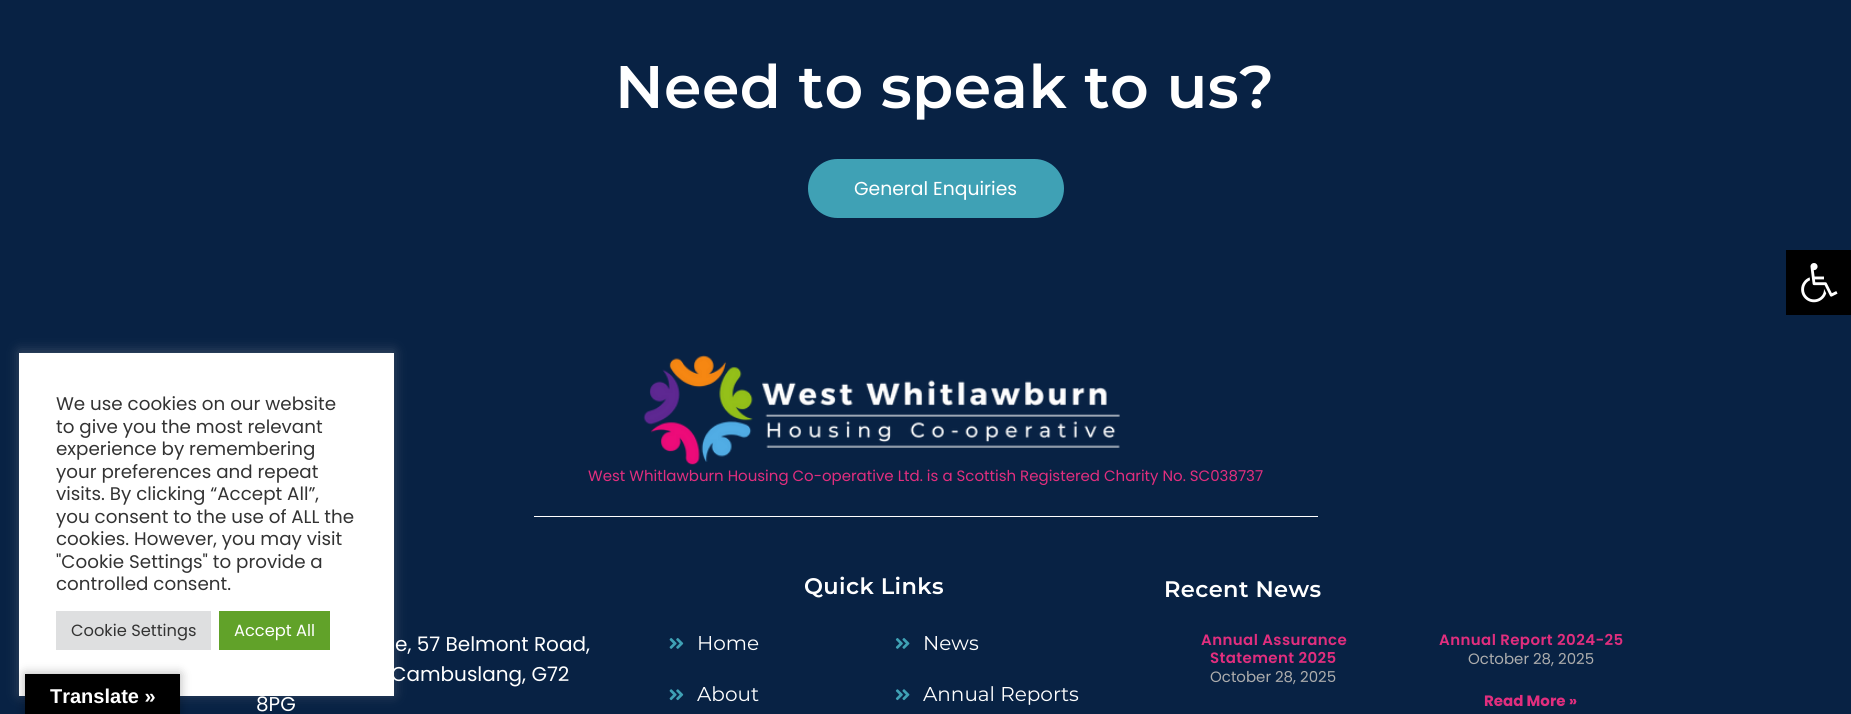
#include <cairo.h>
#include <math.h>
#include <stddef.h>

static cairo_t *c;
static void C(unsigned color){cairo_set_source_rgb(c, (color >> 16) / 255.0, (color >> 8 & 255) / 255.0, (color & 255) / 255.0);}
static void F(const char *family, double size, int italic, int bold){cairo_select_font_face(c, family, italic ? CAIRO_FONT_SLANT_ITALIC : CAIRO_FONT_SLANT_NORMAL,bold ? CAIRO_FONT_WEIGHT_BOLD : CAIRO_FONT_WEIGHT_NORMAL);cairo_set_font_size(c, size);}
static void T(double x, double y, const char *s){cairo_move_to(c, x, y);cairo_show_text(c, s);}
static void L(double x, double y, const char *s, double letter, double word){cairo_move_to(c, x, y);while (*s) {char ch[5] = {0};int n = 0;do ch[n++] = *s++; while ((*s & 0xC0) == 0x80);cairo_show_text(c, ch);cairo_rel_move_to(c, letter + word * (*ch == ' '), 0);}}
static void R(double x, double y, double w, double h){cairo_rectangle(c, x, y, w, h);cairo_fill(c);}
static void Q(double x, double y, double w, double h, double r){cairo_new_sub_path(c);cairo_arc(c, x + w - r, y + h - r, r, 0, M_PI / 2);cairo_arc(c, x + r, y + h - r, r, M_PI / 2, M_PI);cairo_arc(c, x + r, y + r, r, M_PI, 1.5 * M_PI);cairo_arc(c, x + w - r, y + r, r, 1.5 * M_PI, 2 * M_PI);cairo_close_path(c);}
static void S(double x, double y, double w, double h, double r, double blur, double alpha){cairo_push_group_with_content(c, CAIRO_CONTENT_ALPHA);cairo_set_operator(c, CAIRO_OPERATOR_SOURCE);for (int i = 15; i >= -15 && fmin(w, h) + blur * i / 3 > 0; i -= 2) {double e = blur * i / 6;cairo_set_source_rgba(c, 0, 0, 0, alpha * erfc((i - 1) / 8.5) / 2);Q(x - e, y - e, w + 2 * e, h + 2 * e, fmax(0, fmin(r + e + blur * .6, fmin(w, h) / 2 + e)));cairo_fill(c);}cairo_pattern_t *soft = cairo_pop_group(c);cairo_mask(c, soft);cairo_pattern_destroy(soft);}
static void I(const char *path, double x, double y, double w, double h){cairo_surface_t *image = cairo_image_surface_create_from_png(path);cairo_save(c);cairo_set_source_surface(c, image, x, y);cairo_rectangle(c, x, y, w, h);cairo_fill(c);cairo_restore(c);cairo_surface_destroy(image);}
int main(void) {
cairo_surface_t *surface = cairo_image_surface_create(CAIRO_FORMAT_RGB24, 1851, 714);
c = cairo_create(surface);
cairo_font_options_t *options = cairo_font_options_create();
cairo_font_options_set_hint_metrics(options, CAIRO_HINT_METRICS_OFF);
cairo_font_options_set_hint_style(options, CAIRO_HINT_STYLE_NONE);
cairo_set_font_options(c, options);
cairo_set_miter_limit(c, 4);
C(0x082244);
cairo_paint(c);
F("Montserrat SemiBold",60,0,0);
C(0xffffff);
L(615,108,"Need to speak to us?",.5,0);
C(0x3fa1b5);
Q(808,159,256,59,29.5);
cairo_fill(c);
F("Poppins",18.75,0,0);
C(0xffffff);
T(854,195,"General Enquiries");
C(0x000000);
R(1786,250,65,65);
I("1.png",1801,263,37,40);
C(0xacabab);
S(19,351,375,344,0,6,.3);
C(0xffffff);
R(19,353,375,343);
F("Poppins",18.3,0,0);
C(0x333333);
T(56,410,"We use cookies on our website");
T(56,433,"to give you the most relevant");
T(56,455,"experience by remembering");
T(56,478,"your preferences and repeat");
T(56,500,"visits. By clicking “Accept All”,");
T(56,523,"you consent to the use of ALL the");
T(56,545,"cookies. However, you may visit");
T(56,568,"\"Cookie Settings\" to provide a");
T(56,590,"controlled consent.");
C(0xdedfe0);
R(56,611,155,39);
F("Poppins",16.25,0,0);
C(0x333333);
T(71,636,"Cookie Settings");
C(0x61a229);
R(219,611,111,39);
C(0xffffff);
T(234,636,"Accept All");
I("2.png",643,355,477,110);
F("Poppins",15,0,0);
C(0xe12e7e);
T(588,481,"West Whitlawburn Housing Co-operative Ltd. is a Scottish Registered Charity No. SC038737");
C(0xffffff);
R(534,516,784,1);
F("Poppins",20,0,0);
T(395,651,"e, 57 Belmont Road,");
T(391,681,"Cambuslang, G72");
T(256,711,"8PG");
F("Montserrat SemiBold",22.5,0,0);
L(804,594,"Quick Links",.4,0);
I("3.png",669,638,15,11);
F("Montserrat",20,0,0);
T(697,650,"Home");
I("4.png",669,689,15,12);
T(697,701,"About");
I("5.png",895,638,15,11);
T(923,650,"News");
I("6.png",895,689,15,12);
T(923,701,"Annual Reports");
F("Montserrat SemiBold",22.5,0,0);
L(1164,597,"Recent News",.4,0);
F("Poppins SemiBold",15,0,0);
C(0xe12e7e);
L(1201,645,"Annual Assurance",.4,0);
L(1210,663,"Statement 2025",.4,0);
F("Poppins",15,0,0);
C(0xadadad);
T(1210,682,"October 28, 2025");
F("Poppins SemiBold",15,0,0);
C(0xe12e7e);
L(1439,645,"Annual Report 2024-25",.4,0);
F("Poppins",15,0,0);
C(0xadadad);
T(1468,664,"October 28, 2025");
F("Poppins",15,0,1);
C(0xe12e7e);
T(1484,706,"Read More »");
C(0x000000);
S(25,674,155,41,0,5.5,.3);
C(0x000000);
R(25,674,155,40);
F("Liberation Sans",20,0,1);
C(0xffffff);
T(50,703,"Translate »");
cairo_surface_write_to_png(surface, "o.png");
cairo_font_options_destroy(options);
cairo_destroy(c);
cairo_surface_destroy(surface);
return 0;
}
